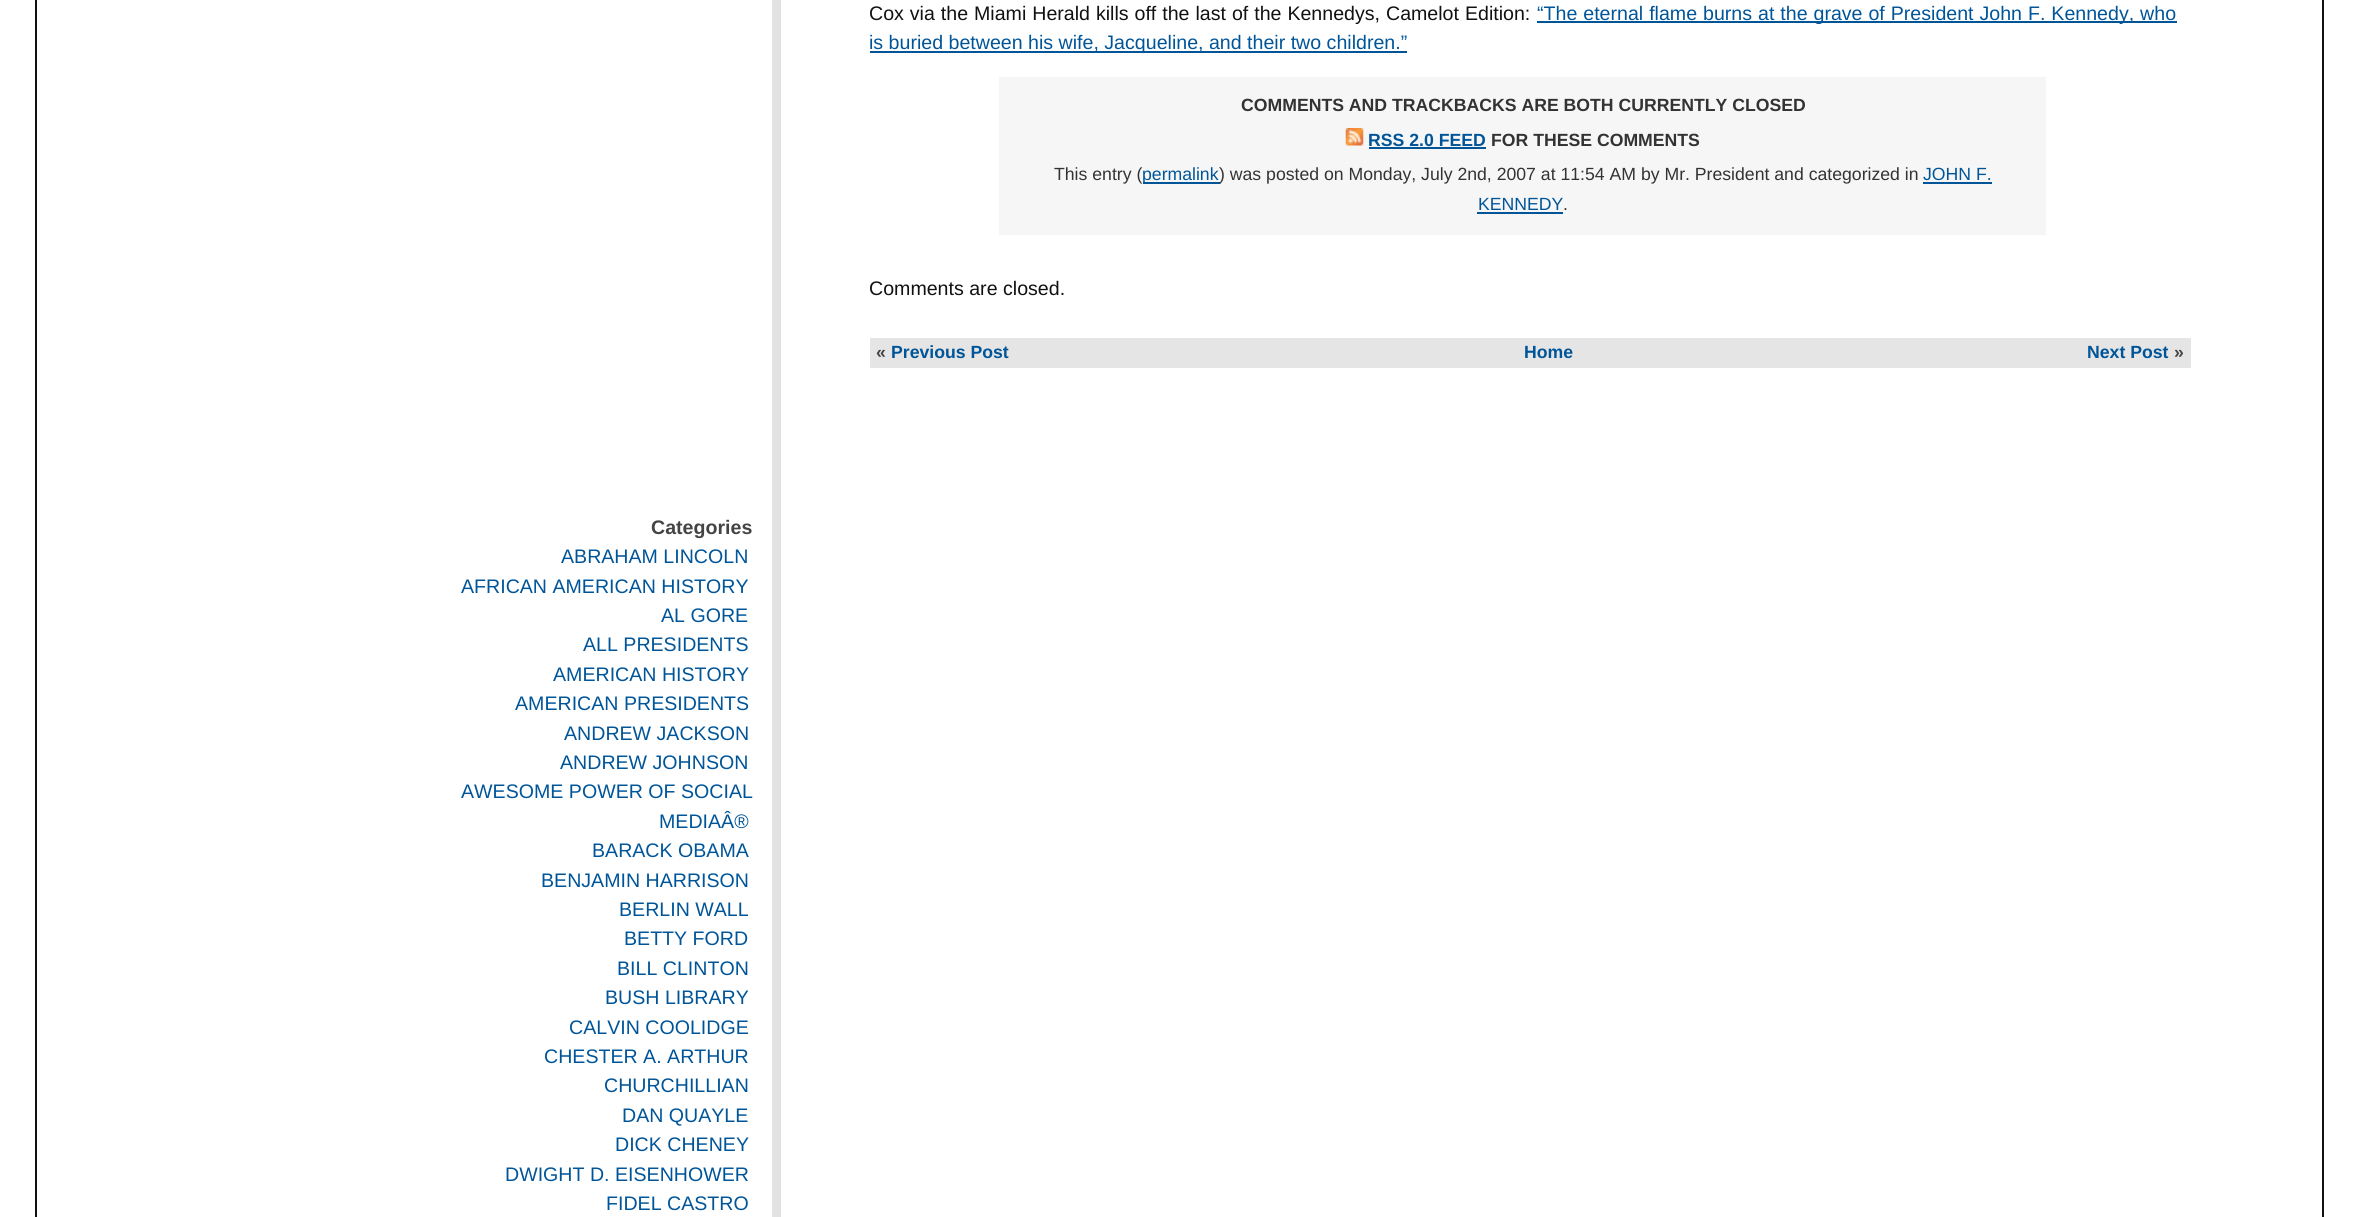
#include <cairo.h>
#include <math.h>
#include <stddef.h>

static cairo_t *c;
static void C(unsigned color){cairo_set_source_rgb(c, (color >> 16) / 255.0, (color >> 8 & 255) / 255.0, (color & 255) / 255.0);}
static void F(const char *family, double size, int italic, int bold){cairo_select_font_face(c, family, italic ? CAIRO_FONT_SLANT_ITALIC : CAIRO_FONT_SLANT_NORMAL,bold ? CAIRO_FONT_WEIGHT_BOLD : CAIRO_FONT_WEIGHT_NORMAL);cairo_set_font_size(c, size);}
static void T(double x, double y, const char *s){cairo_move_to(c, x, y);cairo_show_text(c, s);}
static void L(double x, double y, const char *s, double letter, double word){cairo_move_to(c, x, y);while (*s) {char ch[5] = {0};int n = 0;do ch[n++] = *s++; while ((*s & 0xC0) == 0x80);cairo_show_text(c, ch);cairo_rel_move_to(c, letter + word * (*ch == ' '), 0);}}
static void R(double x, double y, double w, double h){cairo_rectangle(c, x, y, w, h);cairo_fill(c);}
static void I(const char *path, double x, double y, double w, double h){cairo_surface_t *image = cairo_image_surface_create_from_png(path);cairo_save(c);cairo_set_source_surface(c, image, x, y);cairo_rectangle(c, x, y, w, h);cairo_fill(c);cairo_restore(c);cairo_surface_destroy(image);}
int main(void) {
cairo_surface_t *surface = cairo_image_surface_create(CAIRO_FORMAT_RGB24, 2359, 1217);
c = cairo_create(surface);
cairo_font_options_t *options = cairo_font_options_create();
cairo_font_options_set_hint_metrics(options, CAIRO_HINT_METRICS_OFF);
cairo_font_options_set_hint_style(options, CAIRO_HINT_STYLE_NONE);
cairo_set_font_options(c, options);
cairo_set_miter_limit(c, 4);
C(0xffffff);
cairo_paint(c);
cairo_rectangle(c,36,-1,2287,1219);
C(0x111111);
cairo_stroke(c);
F("Liberation Sans",19.6,0,0);
L(869,20,"Cox via the Miami Herald kills off the last of the Kennedys, Camelot Edition:",0,.5);
C(0x005599);
R(1537,21,640,2);
L(1537,20,"“The eternal flame burns at the grave of President John F. Kennedy, who",0,.5);
R(870,51,537,2);
T(869,49,"is buried between his wife, Jacqueline, and their two children.”");
C(0xf6f6f6);
R(999,77,1047,158);
F("Liberation Sans",17.65,0,1);
C(0x333333);
T(1241,111,"COMMENTS AND TRACKBACKS ARE BOTH CURRENTLY CLOSED");
I("1.png",1345,128,19,18);
C(0x005599);
T(1368,146,"RSS 2.0 FEED");
R(1369,147,117,2);
C(0x333333);
T(1491,146,"FOR THESE COMMENTS");
F("Liberation Sans",17.65,0,0);
T(1054,180,"This entry (");
C(0x005599);
R(1143,182,77,2);
T(1142,180,"permalink");
C(0x333333);
T(1219,180,") was posted on Monday, July 2nd, 2007 at 11:54 AM by Mr. President and categorized in");
C(0x005599);
T(1923,180,"JOHN F.");
R(1923,182,69,2);
T(1478,210,"KENNEDY");
R(1477,212,86,2);
C(0x333333);
T(1563,210,".");
F("Liberation Sans",19.6,0,0);
C(0x111111);
T(869,295,"Comments are closed.");
C(0xe5e5e5);
R(870,338,1321,30);
F("Liberation Sans",17.65,0,1);
C(0x444444);
T(876,358,"«");
C(0x005599);
T(891,358,"Previous Post");
T(1524,358,"Home");
T(2087,358,"Next Post");
C(0x444444);
T(2174,358,"»");
C(0xe2e2e2);
R(772,0,9,1217);
F("Liberation Sans",19.6,0,1);
C(0x444444);
T(651,534,"Categories");
F("Liberation Sans",19.6,0,0);
C(0x005599);
T(561,563,"ABRAHAM LINCOLN");
T(461,593,"AFRICAN AMERICAN HISTORY");
T(661,622,"AL GORE");
T(583,651,"ALL PRESIDENTS");
T(553,681,"AMERICAN HISTORY");
T(515,710,"AMERICAN PRESIDENTS");
T(564,740,"ANDREW JACKSON");
T(560,769,"ANDREW JOHNSON");
T(461,798,"AWESOME POWER OF SOCIAL");
T(659,828,"MEDIAÂ®");
T(592,857,"BARACK OBAMA");
T(541,887,"BENJAMIN HARRISON");
T(619,916,"BERLIN WALL");
T(624,945,"BETTY FORD");
T(617,975,"BILL CLINTON");
T(605,1004,"BUSH LIBRARY");
T(569,1034,"CALVIN COOLIDGE");
T(544,1063,"CHESTER A. ARTHUR");
T(604,1092,"CHURCHILLIAN");
T(622,1122,"DAN QUAYLE");
T(615,1151,"DICK CHENEY");
T(505,1181,"DWIGHT D. EISENHOWER");
T(606,1210,"FIDEL CASTRO");
cairo_surface_write_to_png(surface, "o.png");
cairo_font_options_destroy(options);
cairo_destroy(c);
cairo_surface_destroy(surface);
return 0;
}
